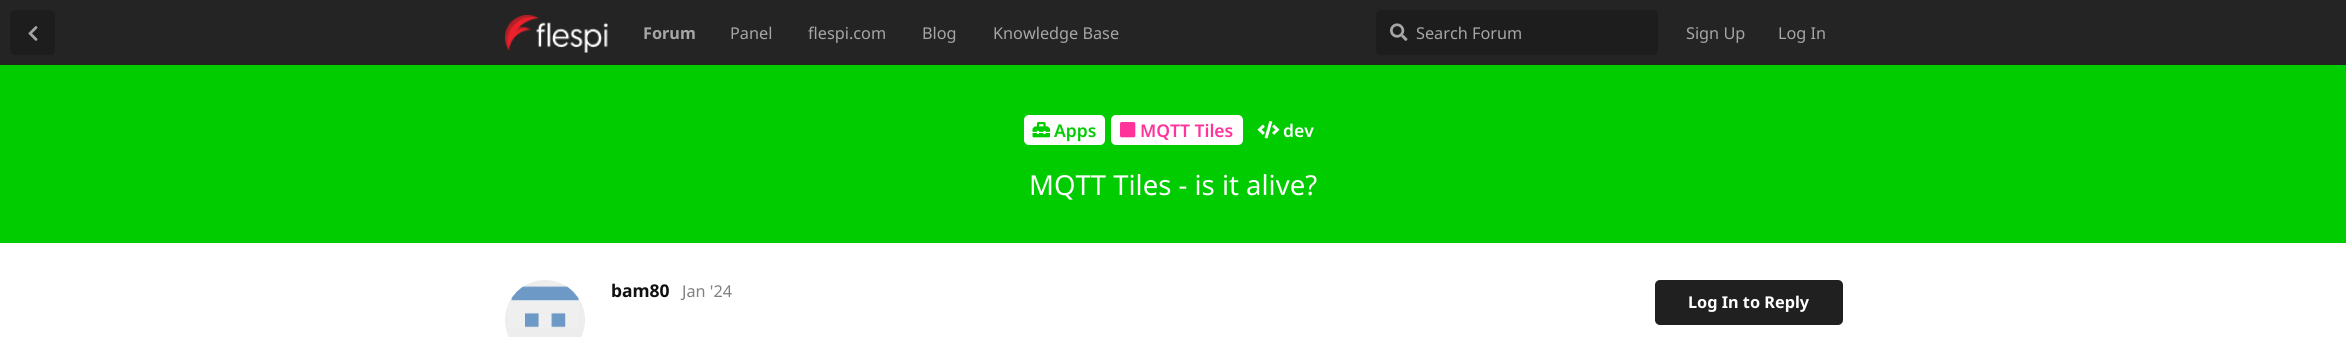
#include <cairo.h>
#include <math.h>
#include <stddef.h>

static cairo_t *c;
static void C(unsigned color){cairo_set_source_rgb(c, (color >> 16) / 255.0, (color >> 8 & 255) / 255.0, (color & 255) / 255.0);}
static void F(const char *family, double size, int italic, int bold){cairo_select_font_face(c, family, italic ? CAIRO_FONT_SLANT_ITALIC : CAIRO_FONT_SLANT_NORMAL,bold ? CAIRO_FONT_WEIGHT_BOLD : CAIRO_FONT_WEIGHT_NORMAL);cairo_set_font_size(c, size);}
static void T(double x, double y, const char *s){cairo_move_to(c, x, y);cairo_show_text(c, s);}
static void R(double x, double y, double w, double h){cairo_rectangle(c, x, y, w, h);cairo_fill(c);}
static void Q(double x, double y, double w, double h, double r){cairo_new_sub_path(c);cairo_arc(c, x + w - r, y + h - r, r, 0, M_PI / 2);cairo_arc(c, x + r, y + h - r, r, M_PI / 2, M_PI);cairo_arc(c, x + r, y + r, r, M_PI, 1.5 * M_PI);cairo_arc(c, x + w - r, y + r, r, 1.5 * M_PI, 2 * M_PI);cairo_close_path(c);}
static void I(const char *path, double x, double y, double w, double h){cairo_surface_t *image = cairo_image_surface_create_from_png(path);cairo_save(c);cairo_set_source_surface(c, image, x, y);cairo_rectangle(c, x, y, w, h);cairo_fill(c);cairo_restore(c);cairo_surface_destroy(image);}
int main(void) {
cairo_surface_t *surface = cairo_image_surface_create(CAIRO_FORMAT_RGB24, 2346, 337);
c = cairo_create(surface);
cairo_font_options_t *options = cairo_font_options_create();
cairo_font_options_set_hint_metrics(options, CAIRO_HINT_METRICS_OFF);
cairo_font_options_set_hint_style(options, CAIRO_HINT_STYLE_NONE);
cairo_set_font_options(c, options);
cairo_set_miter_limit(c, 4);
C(0xffffff);
cairo_paint(c);
C(0x242424);
R(0,0,2346,65);
C(0x1d1d1d);
Q(10,10,45,45,5);
cairo_fill(c);
I("1.png",28,26,10,15);
I("2.png",505,15,103,38);
F("Noto Sans",16.25,0,1);
C(0xa6a6a6);
T(643,39,"Forum");
F("Noto Sans",16.25,0,0);
T(730,39,"Panel");
T(808,39,"flespi.com");
T(922,39,"Blog");
T(993,39,"Knowledge Base");
C(0x1d1d1d);
Q(1376,10,282,45,5);
cairo_fill(c);
I("3.png",1390,23,18,18);
C(0xa6a6a6);
T(1416,39,"Search Forum");
T(1686,39,"Sign Up");
T(1778,39,"Log In");
C(0x00cc00);
R(0,65,2346,178);
C(0xffffff);
Q(1024,115,81,30,5);
cairo_fill(c);
I("4.png",1032,122,18,16);
F("Noto Sans SemiBold",17.5,0,0);
C(0x00cc00);
T(1054,137,"Apps");
C(0xffffff);
Q(1111,115,132,30,5);
cairo_fill(c);
I("5.png",1120,122,16,16);
C(0xff3399);
T(1140,137,"MQTT Tiles");
I("6.png",1257,120,23,19);
C(0xffffff);
T(1283,137,"dev");
F("Noto Sans",27.5,0,0);
T(1029,195,"MQTT Tiles - is it alive?");
C(0xededed);
cairo_new_path(c);
cairo_arc(c,545,320,40,0,2 * M_PI);
cairo_fill(c);
I("7.png",508,286,71,42);
F("Noto Sans",17.5,0,1);
C(0x111111);
T(611,297,"bam80");
F("Noto Sans",16.25,0,0);
C(0x808080);
T(682,297,"Jan '24");
C(0x202020);
Q(1655,280,188,45,5);
cairo_fill(c);
F("Noto Sans",16.25,0,1);
C(0xffffff);
T(1688,308,"Log In to Reply");
cairo_surface_write_to_png(surface, "o.png");
cairo_font_options_destroy(options);
cairo_destroy(c);
cairo_surface_destroy(surface);
return 0;
}
